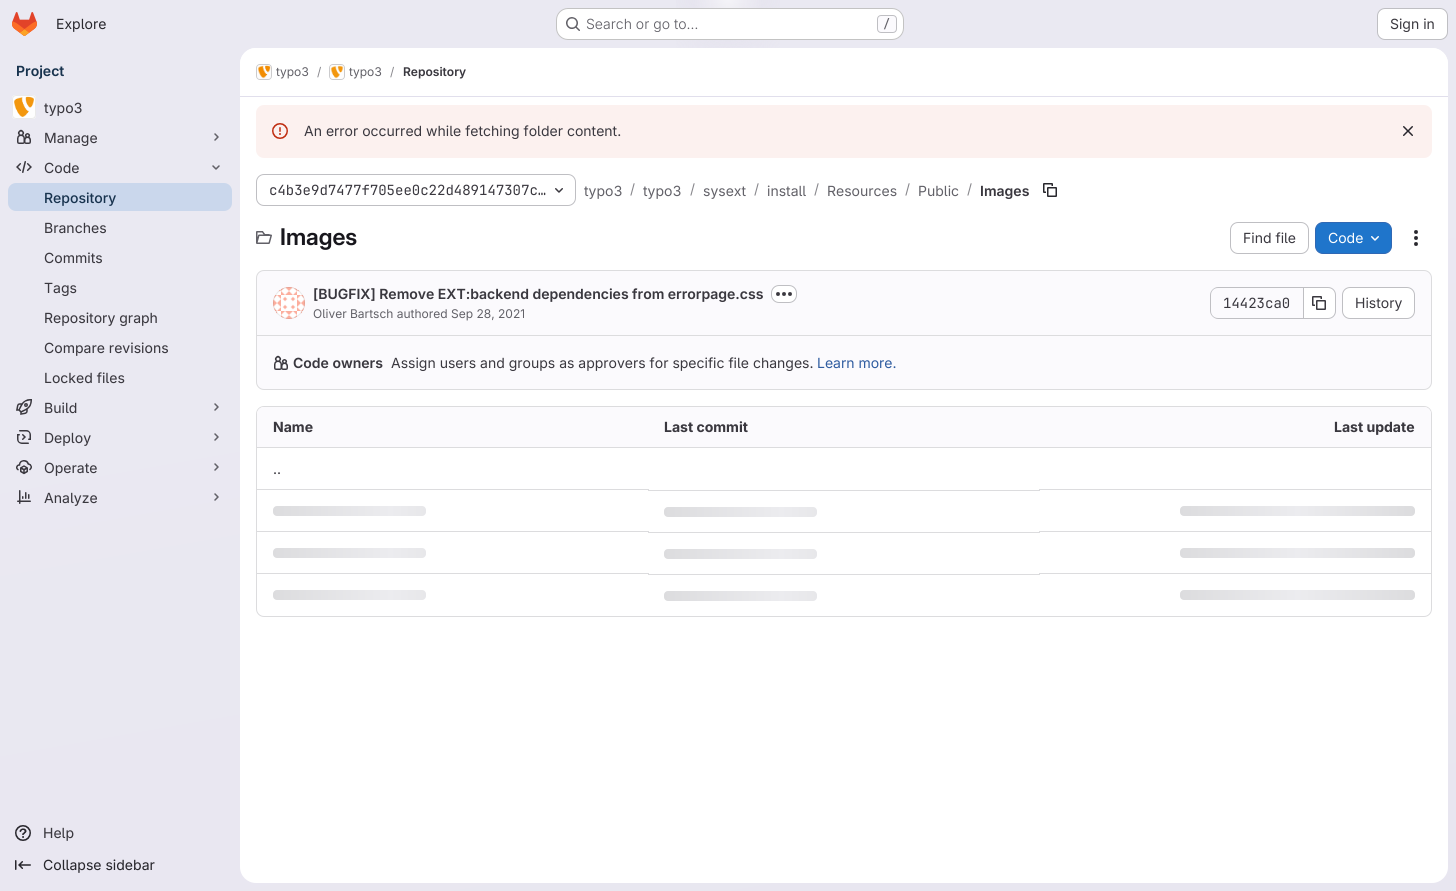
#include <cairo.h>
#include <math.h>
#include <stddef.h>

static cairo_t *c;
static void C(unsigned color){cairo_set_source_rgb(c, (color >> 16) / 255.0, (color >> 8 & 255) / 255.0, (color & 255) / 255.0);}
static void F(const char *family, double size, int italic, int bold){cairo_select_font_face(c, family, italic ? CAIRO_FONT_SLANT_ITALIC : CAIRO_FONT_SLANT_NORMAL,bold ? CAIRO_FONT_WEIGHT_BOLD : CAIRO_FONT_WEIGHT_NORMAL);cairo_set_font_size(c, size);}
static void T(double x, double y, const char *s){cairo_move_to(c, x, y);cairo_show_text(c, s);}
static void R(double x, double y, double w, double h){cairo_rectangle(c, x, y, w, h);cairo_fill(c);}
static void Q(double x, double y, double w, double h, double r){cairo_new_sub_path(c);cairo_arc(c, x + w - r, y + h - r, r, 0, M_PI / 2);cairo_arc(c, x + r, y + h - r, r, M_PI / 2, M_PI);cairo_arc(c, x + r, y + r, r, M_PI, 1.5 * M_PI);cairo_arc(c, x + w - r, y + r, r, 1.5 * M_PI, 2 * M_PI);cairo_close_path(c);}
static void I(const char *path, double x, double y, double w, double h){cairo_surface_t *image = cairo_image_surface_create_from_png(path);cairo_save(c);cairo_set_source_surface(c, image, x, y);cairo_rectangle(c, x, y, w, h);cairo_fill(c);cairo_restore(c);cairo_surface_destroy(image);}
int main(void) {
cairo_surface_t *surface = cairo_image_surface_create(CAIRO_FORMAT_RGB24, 1456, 891);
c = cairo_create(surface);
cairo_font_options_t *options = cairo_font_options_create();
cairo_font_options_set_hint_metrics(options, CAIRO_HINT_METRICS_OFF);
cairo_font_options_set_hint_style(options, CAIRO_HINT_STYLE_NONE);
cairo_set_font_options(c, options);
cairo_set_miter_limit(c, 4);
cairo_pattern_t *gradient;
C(0xffffff);
cairo_paint(c);
gradient = cairo_pattern_create_linear(826,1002,630,-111);
cairo_pattern_add_color_stop_rgba(gradient,0,0.91,0.902,0.941,1);
cairo_pattern_add_color_stop_rgba(gradient,.7,0.918,0.914,0.949,1);
cairo_set_source(c,gradient);
cairo_pattern_destroy(gradient);
R(0,0,1456,891);
gradient = cairo_pattern_create_radial(0,0,0,0,0,1);
cairo_pattern_set_matrix(gradient, &(cairo_matrix_t){1.0 / 728, 0, 0, 1.0 / 891, -1.0 * 728 / 728, -1.0 * 0 / 891});
cairo_pattern_add_color_stop_rgba(gradient,0,0.894,0.886,0.929,1);
cairo_pattern_add_color_stop_rgba(gradient,.1,0.894,0.886,0.929,0);
cairo_set_source(c,gradient);
cairo_pattern_destroy(gradient);
R(676,0,104,48);
gradient = cairo_pattern_create_radial(0,0,0,0,0,1);
cairo_pattern_set_matrix(gradient, &(cairo_matrix_t){1.0 / 728, 0, 0, 1.0 / 891, -1.0 * 728 / 728, -1.0 * 0 / 891});
cairo_pattern_add_color_stop_rgba(gradient,0,0.894,0.886,0.925,1);
cairo_pattern_add_color_stop_rgba(gradient,.07,0.894,0.886,0.925,0);
cairo_set_source(c,gradient);
cairo_pattern_destroy(gradient);
R(711,3,34,14);
gradient = cairo_pattern_create_radial(728,0,0,728,0,1151);
cairo_pattern_add_color_stop_rgba(gradient,0,1,1,1,.6);
cairo_pattern_add_color_stop_rgba(gradient,.03,1,1,1,0);
cairo_set_source(c,gradient);
cairo_pattern_destroy(gradient);
R(695,0,66,8);
I("1.png",12,12,25,24);
F("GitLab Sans",14,0,0);
C(0x28272d);
T(56,29,"Explore");
C(0xffffff);
Q(556,8,348,32,12);
cairo_fill(c);
Q(556.5,8.5,347,31,11.5);
cairo_set_source_rgba(c,0.02,0.02,0.024,0.24);
cairo_set_line_width(c,1);
cairo_stroke(c);
I("2.png",566,17,14,14);
F("GitLab Sans Light",14,0,0);
C(0x626168);
T(586,29,"Search or go to…");
C(0xfbfafd);
Q(877.5,15.5,19,17,3.5);
cairo_fill_preserve(c);
C(0xbfbfc3);
cairo_stroke(c);
F("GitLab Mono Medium",12,0,0);
C(0x626168);
T(883,28,"/");
C(0xffffff);
Q(1377.5,8.5,70,31,7.5);
cairo_fill_preserve(c);
C(0xbfbfc3);
cairo_stroke(c);
F("GitLab Sans",14,0,0);
C(0x3a383f);
T(1390,29,"Sign in");
F("GitLab Sans SemiBold",14,0,0);
C(0x18334e);
T(16,76,"Project");
I("3.png",12,95,24,24);
Q(12.5,95.5,23,23,3.5);
C(0xeaeaea);
cairo_stroke(c);
F("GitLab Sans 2",14,0,0);
C(0x3a383f);
T(44,113,"typo3");
I("4.png",17,129,14,15);
T(44,143,"Manage");
cairo_new_path(c);
cairo_move_to(c,215,134);
cairo_line_to(c,218,137);
cairo_line_to(c,215,140);
C(0x626168);
cairo_set_line_width(c,1.5);
cairo_set_line_cap(c,CAIRO_LINE_CAP_ROUND);
cairo_set_line_join(c,CAIRO_LINE_JOIN_ROUND);
cairo_stroke(c);
I("5.png",16,161,16,12);
C(0x3a383f);
T(44,173,"Code");
cairo_new_path(c);
cairo_move_to(c,219,166);
cairo_line_to(c,216,169);
cairo_line_to(c,213,166);
C(0x626168);
cairo_stroke(c);
C(0xcad7ec);
Q(8,183,224,28,8);
cairo_fill(c);
F("GitLab Sans Medium",14,0,0);
C(0x18334e);
T(44,203,"Repository");
F("GitLab Sans 2",14,0,0);
C(0x3a383f);
T(44,233,"Branches");
T(44,263,"Commits");
T(44,293,"Tags");
T(44,323,"Repository graph");
T(44,353,"Compare revisions");
T(44,383,"Locked files");
I("6.png",16,399,16,16);
T(44,413,"Build");
cairo_new_path(c);
cairo_move_to(c,215,404);
cairo_line_to(c,218,407);
cairo_line_to(c,215,410);
C(0x626168);
cairo_stroke(c);
I("7.png",17,430,14,14);
C(0x3a383f);
T(44,443,"Deploy");
cairo_new_path(c);
cairo_move_to(c,215,434);
cairo_line_to(c,218,437);
cairo_line_to(c,215,440);
C(0x626168);
cairo_stroke(c);
I("8.png",16,460,16,15);
C(0x3a383f);
T(44,473,"Operate");
cairo_new_path(c);
cairo_move_to(c,215,464);
cairo_line_to(c,218,467);
cairo_line_to(c,215,470);
C(0x626168);
cairo_stroke(c);
I("9.png",17,490,14,14);
C(0x3a383f);
T(44,503,"Analyze");
cairo_new_path(c);
cairo_move_to(c,215,494);
cairo_line_to(c,218,497);
cairo_line_to(c,215,500);
C(0x626168);
cairo_stroke(c);
I("10.png",15,825,16,16);
C(0x3a383f);
T(43,838,"Help");
I("11.png",15,860,16,10);
C(0x28272d);
T(43,870,"Collapse sidebar");
C(0xffffff);
Q(240,48,1208,835,16);
cairo_fill(c);
cairo_new_path(c);
cairo_move_to(c,256,48);
cairo_line_to(c,1432,48);
cairo_curve_to(c,1441,48,1448,55,1448,64);
cairo_line_to(c,1448,97);
cairo_line_to(c,240,97);
cairo_line_to(c,240,64);
cairo_curve_to(c,240,55,247,48,256,48);
cairo_close_path(c);
cairo_fill(c);
C(0xe1dfec);
R(240,96,1208,1);
Q(256.5,64.5,15,15,3.5);
C(0xdcdcde);
cairo_set_line_width(c,1);
cairo_set_line_cap(c,CAIRO_LINE_CAP_BUTT);
cairo_set_line_join(c,CAIRO_LINE_JOIN_MITER);
cairo_stroke(c);
I("12.png",257,65,14,14);
Q(256.5,64.5,15,15,3.5);
cairo_set_source_rgba(c,0.02,0.02,0.024,0.08);
cairo_stroke(c);
F("GitLab Sans",12,0,0);
C(0x626168);
T(276,76,"typo3");
C(0x89888d);
T(317,76,"/");
Q(329.5,64.5,15,15,3.5);
C(0xdcdcde);
cairo_stroke(c);
I("13.png",330,65,14,14);
Q(329.5,64.5,15,15,3.5);
cairo_set_source_rgba(c,0.02,0.02,0.024,0.08);
cairo_stroke(c);
C(0x626168);
T(349,76,"typo3");
C(0x89888d);
T(390,76,"/");
F("GitLab Sans SemiBold",12,0,0);
C(0x3a383f);
T(403,76,"Repository");
C(0xfcf1ef);
Q(256,105,1176,53,8);
cairo_fill(c);
I("14.png",272,123,16,16);
F("GitLab Sans",14,0,0);
C(0x3a383f);
T(304,136,"An error occurred while fetching folder content.");
I("15.png",1403,126,10,10);
Q(256.5,174.5,319,31,7.5);
C(0xbfbfc3);
cairo_stroke(c);
F("GitLab Mono",14,0,0);
C(0x3a383f);
T(269,195,"c4b3e9d7477f705ee0c22d489147307c…");
I("16.png",555,188,8,5);
F("GitLab Sans",14,0,0);
C(0x626168);
T(584,196,"typo3");
C(0x89888d);
T(630,194,"/");
C(0x626168);
T(643,196,"typo3");
C(0x89888d);
T(690,194,"/");
C(0x626168);
T(703,196,"sysext");
C(0x89888d);
T(754,194,"/");
C(0x626168);
T(767,196,"install");
C(0x89888d);
T(814,194,"/");
C(0x626168);
T(827,196,"Resources");
C(0x89888d);
T(905,194,"/");
C(0x626168);
T(918,196,"Public");
C(0x89888d);
T(967,194,"/");
F("GitLab Sans SemiBold",14,0,0);
C(0x3a383f);
T(980,196,"Images");
I("17.png",1043,183,14,14);
I("18.png",256,231,16,13);
F("GitLab Sans 2 SemiBold",23,0,0);
C(0x18171d);
T(280,245,"Images");
Q(1230.5,222.5,78,31,7.5);
C(0xbfbfc3);
cairo_stroke(c);
F("GitLab Sans",14,0,0);
C(0x3a383f);
T(1243,243,"Find file");
C(0x1f75cb);
Q(1315.5,222.5,76,31,7.5);
cairo_fill_preserve(c);
C(0x2f68b4);
cairo_stroke(c);
C(0xffffff);
T(1328,243,"Code");
I("19.png",1371,236,8,5);
I("20.png",1414,230,4,16);
C(0xfbfafd);
Q(256.5,270.5,1175,119,7.5);
cairo_fill_preserve(c);
C(0xdcdcde);
cairo_stroke(c);
I("21.png",273,287,32,32);
cairo_arc(c,289,303,15.5,0,2 * M_PI);
cairo_set_source_rgba(c,0.02,0.02,0.024,0.08);
cairo_stroke(c);
F("GitLab Sans SemiBold",14,0,0);
C(0x3a383f);
T(313,299,"[BUGFIX] Remove EXT:backend dependencies from errorpage.css");
C(0xffffff);
Q(771.5,285.5,25,17,7.5);
cairo_fill_preserve(c);
C(0xbfbfc3);
cairo_stroke(c);
I("22.png",776,292,16,4);
F("GitLab Sans",12,0,0);
C(0x626168);
T(313,318,"Oliver Bartsch authored Sep 28, 2021");
C(0xbfbfc3);
cairo_set_fill_rule(c,CAIRO_FILL_RULE_EVEN_ODD);
cairo_new_path(c);
cairo_move_to(c,1218,287);
cairo_line_to(c,1303,287);
cairo_line_to(c,1303,319);
cairo_line_to(c,1218,319);
cairo_curve_to(c,1214,319,1210,315,1210,311);
cairo_line_to(c,1210,295);
cairo_curve_to(c,1210,291,1214,287,1218,287);
cairo_close_path(c);
cairo_move_to(c,1218,288);
cairo_line_to(c,1303,288);
cairo_line_to(c,1303,318);
cairo_line_to(c,1218,318);
cairo_curve_to(c,1214,318,1211,315,1211,311);
cairo_line_to(c,1211,295);
cairo_curve_to(c,1211,291,1214,288,1218,288);
cairo_close_path(c);
cairo_fill(c);
F("GitLab Mono",14,0,0);
C(0x3a383f);
T(1223,308,"14423ca0");
C(0xffffff);
cairo_new_path(c);
cairo_move_to(c,1304,288);
cairo_line_to(c,1328,288);
cairo_curve_to(c,1332,288,1335,291,1335,295);
cairo_line_to(c,1335,311);
cairo_curve_to(c,1335,315,1332,318,1328,318);
cairo_line_to(c,1304,318);
cairo_close_path(c);
cairo_fill(c);
C(0xbfbfc3);
cairo_new_path(c);
cairo_move_to(c,1304,287);
cairo_line_to(c,1328,287);
cairo_curve_to(c,1332.5,287,1336,290.5,1336,295);
cairo_line_to(c,1336,311);
cairo_curve_to(c,1336,315.5,1332.5,319,1328,319);
cairo_line_to(c,1304,319);
cairo_close_path(c);
cairo_move_to(c,1304,288);
cairo_line_to(c,1328,288);
cairo_curve_to(c,1332,288,1335,291,1335,295);
cairo_line_to(c,1335,311);
cairo_curve_to(c,1335,315,1332,318,1328,318);
cairo_line_to(c,1304,318);
cairo_close_path(c);
cairo_fill(c);
R(1303,287,1,32);
I("23.png",1312,296,14,14);
C(0xffffff);
Q(1342.5,287.5,72,31,7.5);
cairo_fill_preserve(c);
C(0xbfbfc3);
cairo_stroke(c);
F("GitLab Sans",14,0,0);
C(0x3a383f);
T(1355,308,"History");
C(0xdcdcde);
R(257,335,1174,1);
I("24.png",274,355,14,15);
F("GitLab Sans SemiBold",14,0,0);
C(0x3a383f);
T(293,368,"Code owners");
F("GitLab Sans",14,0,0);
T(391,368,"Assign users and groups as approvers for specific file changes.");
C(0x2f5ca0);
T(817,368,"Learn more.");
Q(256.5,406.5,1175,210,7.5);
C(0xdcdcde);
cairo_stroke(c);
C(0xfbfafd);
cairo_new_path(c);
cairo_move_to(c,264,407);
cairo_line_to(c,648,407);
cairo_line_to(c,648,448);
cairo_line_to(c,257,448);
cairo_line_to(c,257,414);
cairo_curve_to(c,257,410,260,407,264,407);
cairo_close_path(c);
cairo_fill(c);
F("GitLab Sans",14,0,1);
C(0x3a383f);
T(273,432,"Name");
C(0xfbfafd);
R(648,407,392,40);
C(0x3a383f);
T(664,432,"Last commit");
C(0xfbfafd);
cairo_new_path(c);
cairo_move_to(c,1040,407);
cairo_line_to(c,1424,407);
cairo_curve_to(c,1428,407,1431,410,1431,414);
cairo_line_to(c,1431,448);
cairo_line_to(c,1040,448);
cairo_close_path(c);
cairo_fill(c);
C(0x3a383f);
T(1334,432,"Last update");
C(0xdcdcde);
R(257,447,1174,1);
F("GitLab Sans",14,0,0);
C(0x3a383f);
T(273,474,"..");
C(0xdcdcde);
R(257,489,392,1);
gradient = cairo_pattern_create_linear(273,506,508,506);
cairo_pattern_add_color_stop_rgba(gradient,0,0.863,0.863,0.871,1);
cairo_pattern_add_color_stop_rgba(gradient,.5,0.925,0.925,0.937,1);
cairo_pattern_add_color_stop_rgba(gradient,1,0.863,0.863,0.871,1);
cairo_set_source(c,gradient);
cairo_pattern_destroy(gradient);
Q(273,506,153,10,4);
cairo_fill(c);
C(0xdcdcde);
R(648,490,392,1);
gradient = cairo_pattern_create_linear(664,507,899,507);
cairo_pattern_add_color_stop_rgba(gradient,0,0.863,0.863,0.871,1);
cairo_pattern_add_color_stop_rgba(gradient,.5,0.925,0.925,0.937,1);
cairo_pattern_add_color_stop_rgba(gradient,1,0.863,0.863,0.871,1);
cairo_set_source(c,gradient);
cairo_pattern_destroy(gradient);
Q(664,507,153,10,4);
cairo_fill(c);
C(0xdcdcde);
R(1039,489,392,1);
gradient = cairo_pattern_create_linear(1180,506,1415,506);
cairo_pattern_add_color_stop_rgba(gradient,0,0.863,0.863,0.871,1);
cairo_pattern_add_color_stop_rgba(gradient,.5,0.925,0.925,0.937,1);
cairo_pattern_add_color_stop_rgba(gradient,1,0.863,0.863,0.871,1);
cairo_set_source(c,gradient);
cairo_pattern_destroy(gradient);
Q(1180,506,235,10,4);
cairo_fill(c);
C(0xdcdcde);
R(257,531,392,1);
gradient = cairo_pattern_create_linear(273,548,508,548);
cairo_pattern_add_color_stop_rgba(gradient,0,0.863,0.863,0.871,1);
cairo_pattern_add_color_stop_rgba(gradient,.5,0.925,0.925,0.937,1);
cairo_pattern_add_color_stop_rgba(gradient,1,0.863,0.863,0.871,1);
cairo_set_source(c,gradient);
cairo_pattern_destroy(gradient);
Q(273,548,153,10,4);
cairo_fill(c);
C(0xdcdcde);
R(648,532,392,1);
gradient = cairo_pattern_create_linear(664,549,899,549);
cairo_pattern_add_color_stop_rgba(gradient,0,0.863,0.863,0.871,1);
cairo_pattern_add_color_stop_rgba(gradient,.5,0.925,0.925,0.937,1);
cairo_pattern_add_color_stop_rgba(gradient,1,0.863,0.863,0.871,1);
cairo_set_source(c,gradient);
cairo_pattern_destroy(gradient);
Q(664,549,153,10,4);
cairo_fill(c);
C(0xdcdcde);
R(1039,531,392,1);
gradient = cairo_pattern_create_linear(1180,548,1415,548);
cairo_pattern_add_color_stop_rgba(gradient,0,0.863,0.863,0.871,1);
cairo_pattern_add_color_stop_rgba(gradient,.5,0.925,0.925,0.937,1);
cairo_pattern_add_color_stop_rgba(gradient,1,0.863,0.863,0.871,1);
cairo_set_source(c,gradient);
cairo_pattern_destroy(gradient);
Q(1180,548,235,10,4);
cairo_fill(c);
C(0xdcdcde);
R(257,573,392,1);
gradient = cairo_pattern_create_linear(273,590,508,590);
cairo_pattern_add_color_stop_rgba(gradient,0,0.863,0.863,0.871,1);
cairo_pattern_add_color_stop_rgba(gradient,.5,0.925,0.925,0.937,1);
cairo_pattern_add_color_stop_rgba(gradient,1,0.863,0.863,0.871,1);
cairo_set_source(c,gradient);
cairo_pattern_destroy(gradient);
Q(273,590,153,10,4);
cairo_fill(c);
C(0xdcdcde);
R(648,574,392,1);
gradient = cairo_pattern_create_linear(664,591,899,591);
cairo_pattern_add_color_stop_rgba(gradient,0,0.863,0.863,0.871,1);
cairo_pattern_add_color_stop_rgba(gradient,.5,0.925,0.925,0.937,1);
cairo_pattern_add_color_stop_rgba(gradient,1,0.863,0.863,0.871,1);
cairo_set_source(c,gradient);
cairo_pattern_destroy(gradient);
Q(664,591,153,10,4);
cairo_fill(c);
C(0xdcdcde);
R(1039,573,392,1);
gradient = cairo_pattern_create_linear(1180,590,1415,590);
cairo_pattern_add_color_stop_rgba(gradient,0,0.863,0.863,0.871,1);
cairo_pattern_add_color_stop_rgba(gradient,.5,0.925,0.925,0.937,1);
cairo_pattern_add_color_stop_rgba(gradient,1,0.863,0.863,0.871,1);
cairo_set_source(c,gradient);
cairo_pattern_destroy(gradient);
Q(1180,590,235,10,4);
cairo_fill(c);
cairo_surface_write_to_png(surface, "o.png");
cairo_font_options_destroy(options);
cairo_destroy(c);
cairo_surface_destroy(surface);
return 0;
}
